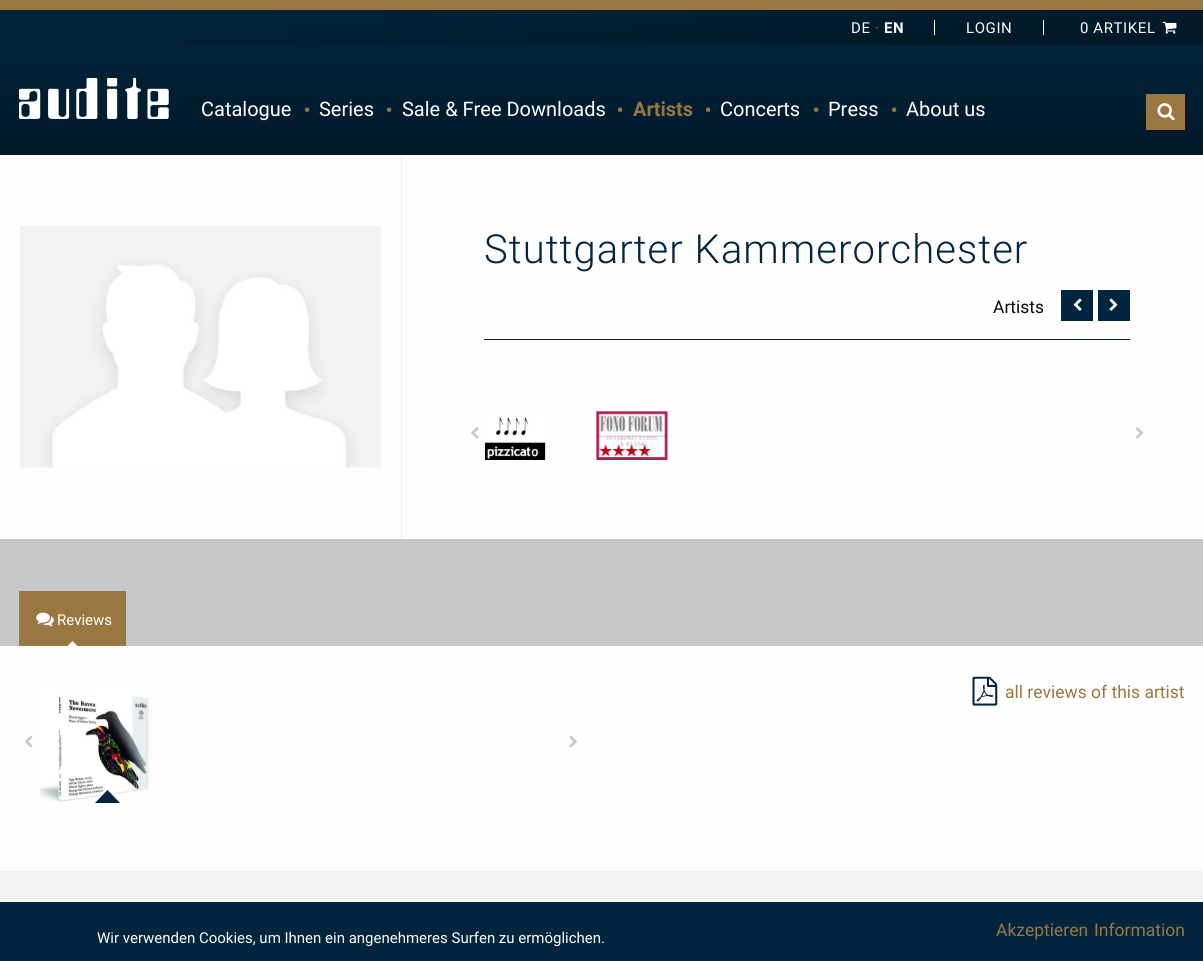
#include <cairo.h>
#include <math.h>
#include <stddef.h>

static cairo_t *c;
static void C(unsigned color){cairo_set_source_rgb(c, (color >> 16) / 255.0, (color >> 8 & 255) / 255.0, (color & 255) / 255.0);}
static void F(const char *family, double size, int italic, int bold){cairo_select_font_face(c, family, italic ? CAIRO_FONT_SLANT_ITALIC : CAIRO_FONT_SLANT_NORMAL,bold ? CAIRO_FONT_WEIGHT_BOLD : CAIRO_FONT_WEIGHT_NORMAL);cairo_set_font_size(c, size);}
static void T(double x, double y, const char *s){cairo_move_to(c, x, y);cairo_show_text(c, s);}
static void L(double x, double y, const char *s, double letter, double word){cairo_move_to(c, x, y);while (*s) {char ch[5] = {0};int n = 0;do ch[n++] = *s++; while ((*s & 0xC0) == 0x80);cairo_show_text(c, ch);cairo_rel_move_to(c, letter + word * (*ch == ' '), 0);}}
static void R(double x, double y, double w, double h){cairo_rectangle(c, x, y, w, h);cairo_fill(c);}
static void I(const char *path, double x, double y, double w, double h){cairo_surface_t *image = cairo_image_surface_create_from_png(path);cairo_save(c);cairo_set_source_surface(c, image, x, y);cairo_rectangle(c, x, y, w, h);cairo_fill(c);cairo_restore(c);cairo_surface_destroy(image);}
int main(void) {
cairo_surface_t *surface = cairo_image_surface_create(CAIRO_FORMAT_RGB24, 1203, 961);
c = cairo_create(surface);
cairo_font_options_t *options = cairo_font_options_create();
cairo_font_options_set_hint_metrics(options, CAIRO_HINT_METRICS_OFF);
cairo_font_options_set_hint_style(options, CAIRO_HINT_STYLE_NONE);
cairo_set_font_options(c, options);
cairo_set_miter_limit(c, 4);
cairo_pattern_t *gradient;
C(0xfefefe);
cairo_paint(c);
gradient = cairo_pattern_create_linear(602,10,602,155);
cairo_pattern_add_color_stop_rgba(gradient,0,0.004,0.145,0.239,1);
cairo_pattern_add_color_stop_rgba(gradient,1,0.004,0.098,0.165,1);
cairo_set_source(c,gradient);
cairo_pattern_destroy(gradient);
R(0,10,1203,145);
C(0x9a7741);
R(0,0,1203,10);
gradient = cairo_pattern_create_linear(0,28,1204,27);
cairo_pattern_add_color_stop_rgba(gradient,0,0,0,0,0);
cairo_pattern_add_color_stop_rgba(gradient,1,0,0,0,.3);
cairo_set_source(c,gradient);
cairo_pattern_destroy(gradient);
R(165,10,1038,35);
F("Roboto",15,0,0);
C(0xfefefe);
L(851,33,"DE",.6,0);
C(0x9a7741);
L(875,33,"·",.6,0);
F("Roboto",15,0,1);
C(0xfefefe);
L(884,33,"EN",.6,0);
R(934,20,1,15);
F("Roboto",15,0,0);
L(966,33,"LOGIN",.6,0);
R(1043,20,1,15);
L(1080,33,"0 ARTIKEL",.6,0);
I("1.png",1162,21,15,13);
I("2.png",19,78,150,41);
F("Roboto",20,0,0);
T(201,116,"Catalogue");
F("Roboto",40,0,0);
C(0x9a7741);
T(302,124,"·");
F("Roboto",20,0,0);
C(0xfefefe);
T(319,116,"Series");
F("Roboto",40,0,0);
C(0x9a7741);
T(384,124,"·");
F("Roboto",20,0,0);
C(0xfefefe);
T(402,116,"Sale & Free Downloads");
F("Roboto",40,0,0);
C(0x9a7741);
T(615,124,"·");
F("Roboto",20,0,1);
T(633,116,"Artists");
F("Roboto",40,0,0);
T(703,124,"·");
F("Roboto",20,0,0);
C(0xfefefe);
T(720,116,"Concerts");
F("Roboto",40,0,0);
C(0x9a7741);
T(811,124,"·");
F("Roboto",20,0,0);
C(0xfefefe);
T(828,116,"Press");
F("Roboto",40,0,0);
C(0x9a7741);
T(889,124,"·");
F("Roboto",20,0,0);
C(0xfefefe);
T(906,116,"About us");
C(0x9a7741);
R(1146,94,39,36);
I("3.png",1157,103,18,18);
I("4.png",20,226,361,242);
C(0xefefef);
R(401,155,1,384);
C(0x01253d);
R(484,339,646,1);
F("Roboto Light",40,0,0);
L(484,263,"Stuttgarter Kammerorchester",1.05,0);
F("Roboto",17.5,0,0);
C(0x0a0a0a);
T(993,313,"Artists");
C(0x01253d);
R(1061,290,32,31);
I("5.png",1073,298,9,13);
R(1098,290,32,31);
I("6.png",1109,298,9,13);
I("7.png",471,427,8,12);
I("8.png",485,417,61,43);
I("9.png",596,410,72,50);
I("10.png",1135,427,9,12);
C(0xc8c8ca);
R(0,539,1203,107);
C(0x9a7741);
R(19,591,107,55);
I("11.png",36,612,18,15);
F("Roboto",15,0,0);
C(0xfefefe);
T(57,625,"Reviews");
cairo_new_path(c);
cairo_move_to(c,77.5,646);
cairo_line_to(c,67.5,646);
cairo_line_to(c,72.5,641);
cairo_close_path(c);
cairo_fill(c);
I("12.png",25,735,8,13);
I("13.png",40,687,109,115);
cairo_save(c);
cairo_rectangle(c,39,685,525,118);
cairo_clip(c);
C(0x01253d);
cairo_new_path(c);
cairo_move_to(c,121,804);
cairo_line_to(c,94,804);
cairo_line_to(c,107.5,790);
cairo_close_path(c);
cairo_fill(c);
cairo_restore(c);
I("14.png",569,735,8,13);
I("15.png",972,676,26,30);
F("Roboto",17.5,0,0);
C(0x9a7741);
T(1005,698,"all reviews of this artist");
C(0xf2f2f2);
R(0,871,1203,28);
C(0x01253d);
R(0,902,1203,59);
F("Roboto",15,0,0);
C(0xfefefe);
T(97,943,"Wir verwenden Cookies, um Ihnen ein angenehmeres Surfen zu ermöglichen.");
F("Roboto",17.5,0,0);
C(0x9a7741);
T(996,936,"Akzeptieren");
T(1094,936,"Information");
cairo_surface_write_to_png(surface, "o.png");
cairo_font_options_destroy(options);
cairo_destroy(c);
cairo_surface_destroy(surface);
return 0;
}
